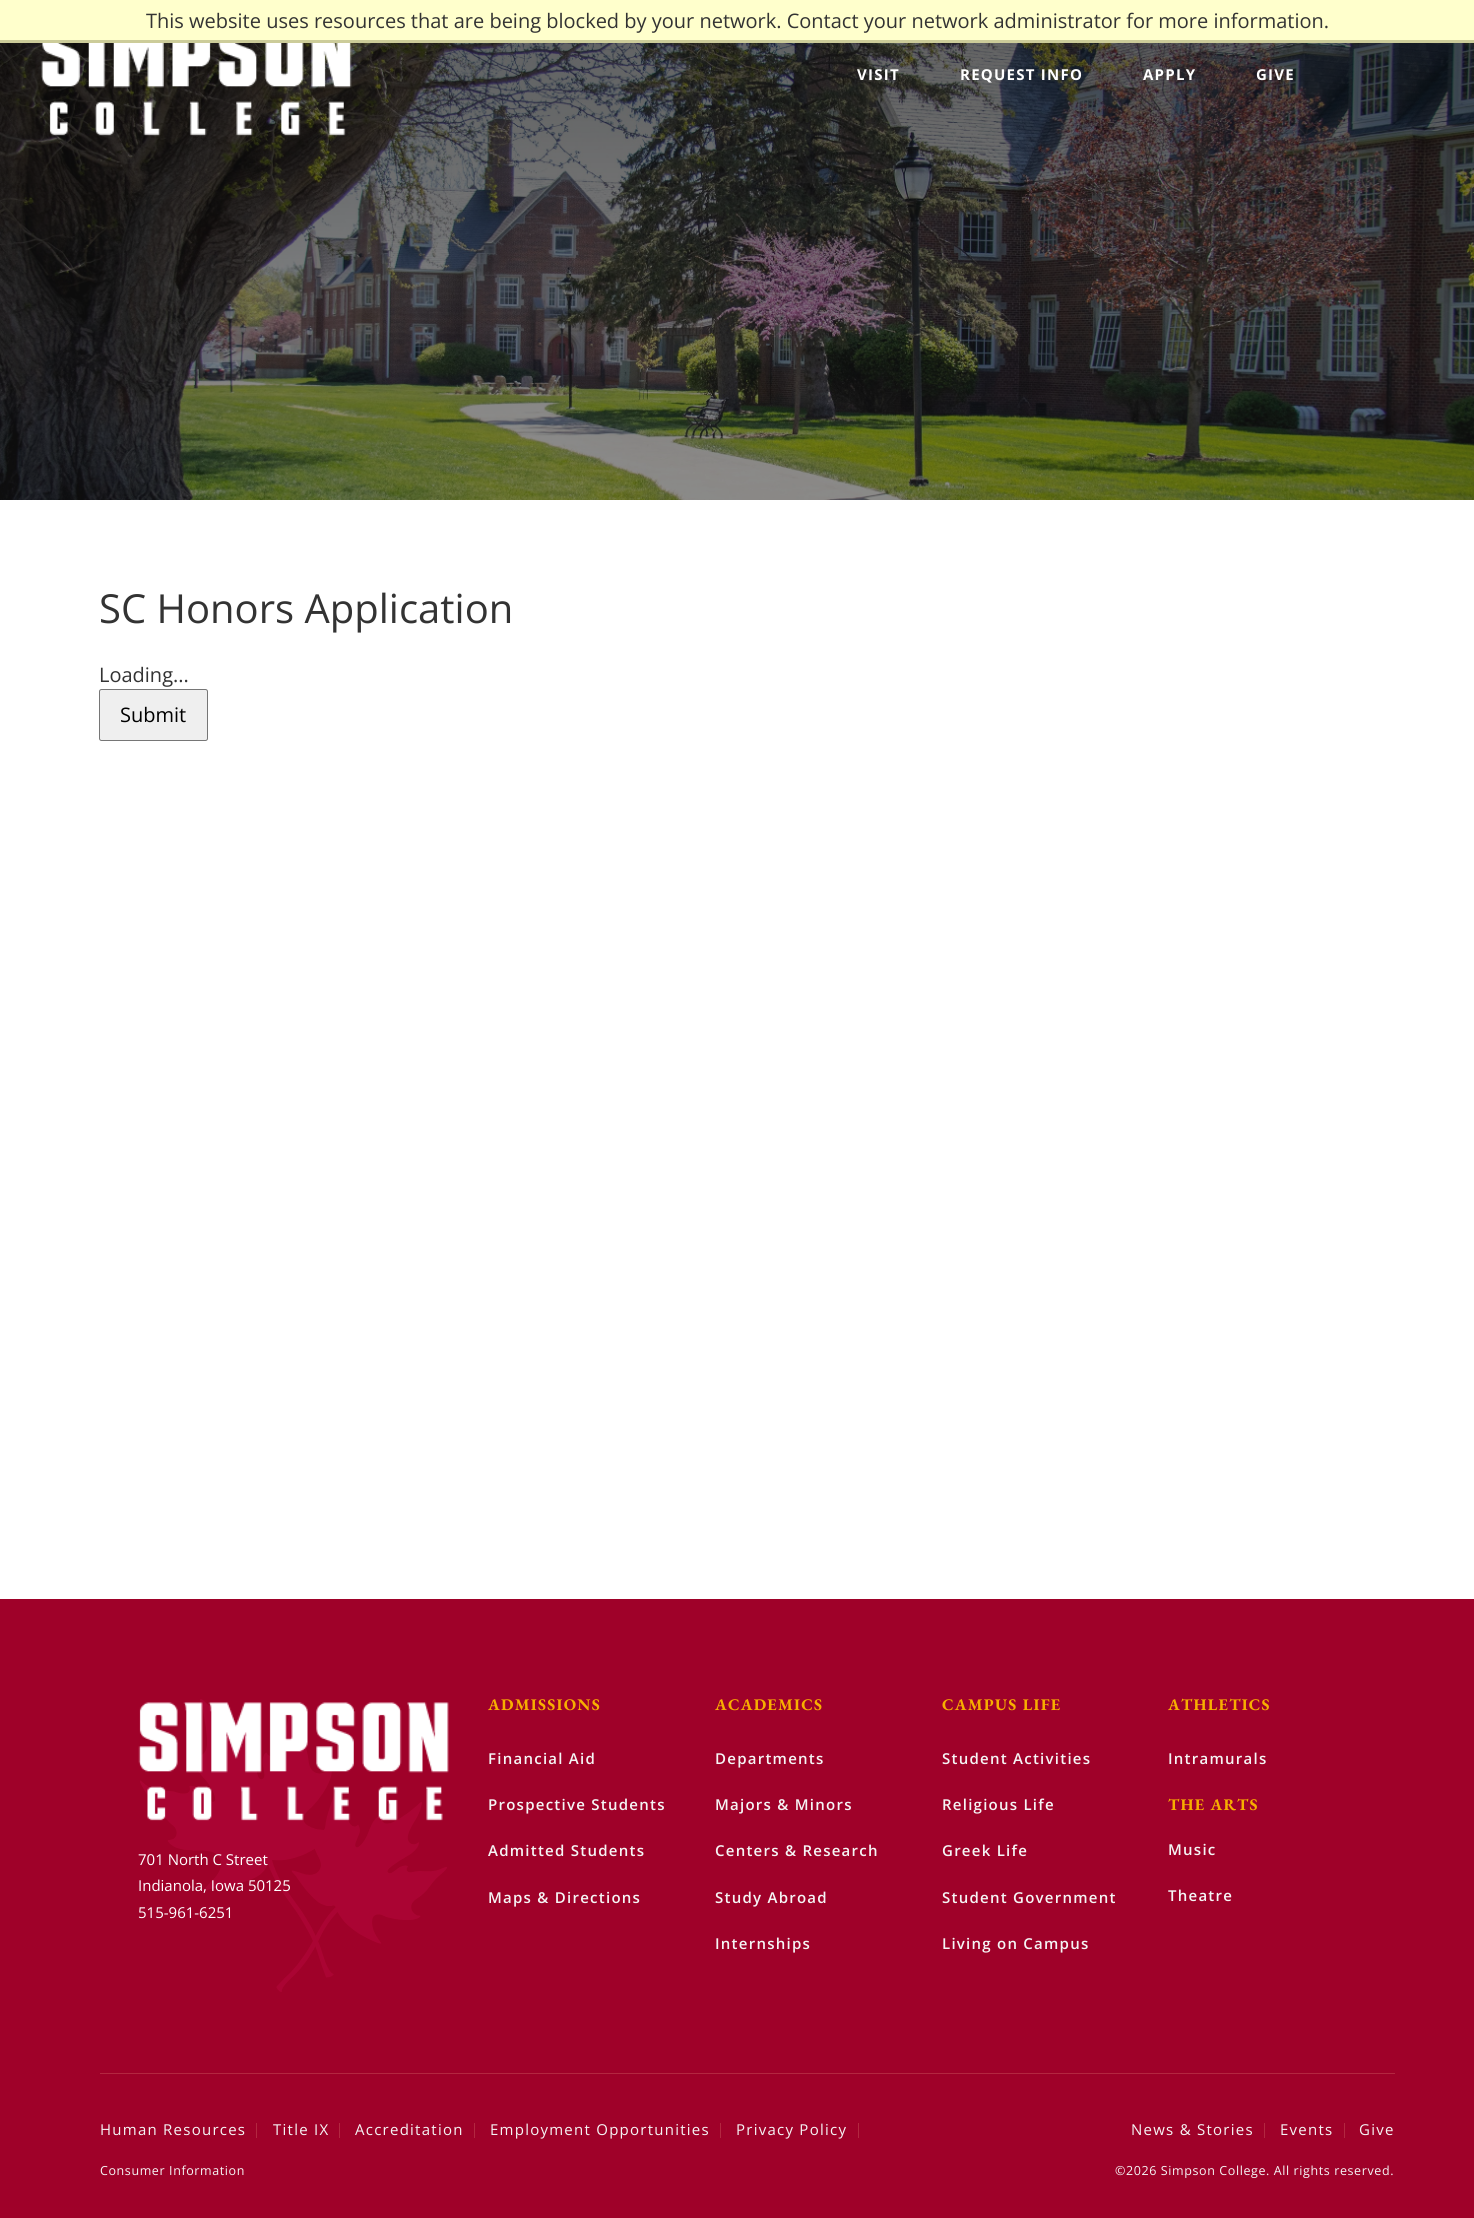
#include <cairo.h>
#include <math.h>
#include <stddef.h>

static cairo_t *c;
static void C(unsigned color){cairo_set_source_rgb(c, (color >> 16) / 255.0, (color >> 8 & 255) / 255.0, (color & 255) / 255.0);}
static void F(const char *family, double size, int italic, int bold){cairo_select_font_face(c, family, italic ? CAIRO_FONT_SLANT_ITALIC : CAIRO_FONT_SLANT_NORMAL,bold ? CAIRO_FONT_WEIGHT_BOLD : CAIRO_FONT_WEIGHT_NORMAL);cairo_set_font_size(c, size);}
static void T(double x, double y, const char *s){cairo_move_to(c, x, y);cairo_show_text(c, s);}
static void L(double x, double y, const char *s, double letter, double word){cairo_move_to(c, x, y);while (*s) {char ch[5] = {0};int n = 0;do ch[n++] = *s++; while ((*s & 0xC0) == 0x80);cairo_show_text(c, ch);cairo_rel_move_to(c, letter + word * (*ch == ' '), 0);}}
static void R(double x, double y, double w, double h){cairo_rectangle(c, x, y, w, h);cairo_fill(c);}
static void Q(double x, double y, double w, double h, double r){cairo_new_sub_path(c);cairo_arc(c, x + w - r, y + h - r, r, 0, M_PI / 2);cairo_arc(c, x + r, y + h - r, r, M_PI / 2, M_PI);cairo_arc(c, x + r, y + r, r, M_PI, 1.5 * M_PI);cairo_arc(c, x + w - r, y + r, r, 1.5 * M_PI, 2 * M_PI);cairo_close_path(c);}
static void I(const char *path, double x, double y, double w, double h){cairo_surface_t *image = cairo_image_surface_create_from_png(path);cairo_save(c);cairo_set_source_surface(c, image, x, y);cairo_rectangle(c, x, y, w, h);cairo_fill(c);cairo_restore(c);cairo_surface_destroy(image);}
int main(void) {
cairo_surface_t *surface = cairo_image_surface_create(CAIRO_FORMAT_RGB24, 1474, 2218);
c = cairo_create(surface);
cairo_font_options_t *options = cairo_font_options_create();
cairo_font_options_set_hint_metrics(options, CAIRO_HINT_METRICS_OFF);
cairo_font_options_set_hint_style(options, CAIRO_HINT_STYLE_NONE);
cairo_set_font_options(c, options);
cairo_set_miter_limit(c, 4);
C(0xffffff);
cairo_paint(c);
C(0xffffcc);
R(0,0,1474,40);
C(0xcccc99);
R(0,40,1474,3);
F("Open Sans",20,0,0);
C(0x333333);
T(146,28,"This website uses resources that are being blocked by your network. Contact your network administrator for more information.");
I("2.png",0,43,1474,457);
I("1.png",41,43,311,93);
F("Open Sans",15,0,1);
C(0xffffff);
L(857,80,"VISIT",1.25,0);
L(960,80,"REQUEST INFO",1.25,0);
L(1143,80,"APPLY",1.25,0);
L(1256,80,"GIVE",1.25,0);
F("Open Sans",40,0,0);
C(0x333333);
T(99,623,"SC Honors Application");
F("Open Sans",20,0,0);
T(99,682,"Loading...");
C(0xefefef);
Q(99.5,689.5,108,51,2);
cairo_fill_preserve(c);
C(0x767676);
cairo_set_line_width(c,1);
cairo_stroke(c);
C(0x000000);
T(120,722,"Submit");
C(0x9f0129);
R(0,1599,1474,619);
I("3.png",140,1699,307,293);
I("4.png",138,1702,311,119);
F("Open Sans",15,0,0);
C(0xffffff);
T(138,1865,"701 North C Street");
T(138,1891,"Indianola, Iowa 50125");
T(138,1918,"515-961-6251");
F("EB Garamond",16.25,0,1);
C(0xf7af00);
L(488,1710,"ADMISSIONS",1.25,0);
F("Open Sans SemiBold",15,0,0);
C(0xf5f5f5);
L(488,1764,"Financial Aid",1.25,0);
L(488,1810,"Prospective Students",1.25,0);
L(488,1856,"Admitted Students",1.25,0);
L(488,1903,"Maps & Directions",1.25,0);
F("EB Garamond",16.25,0,1);
C(0xf7af00);
L(715,1710,"ACADEMICS",1.25,0);
F("Open Sans SemiBold",15,0,0);
C(0xf5f5f5);
L(715,1764,"Departments",1.25,0);
L(715,1810,"Majors & Minors",1.25,0);
L(715,1856,"Centers & Research",1.25,0);
L(715,1903,"Study Abroad",1.25,0);
L(715,1949,"Internships",1.25,0);
F("EB Garamond",16.25,0,1);
C(0xf7af00);
L(942,1710,"CAMPUS LIFE",1.25,0);
F("Open Sans SemiBold",15,0,0);
C(0xf5f5f5);
L(942,1764,"Student Activities",1.25,0);
L(942,1810,"Religious Life",1.25,0);
L(942,1856,"Greek Life",1.25,0);
L(942,1903,"Student Government",1.25,0);
L(942,1949,"Living on Campus",1.25,0);
F("EB Garamond",16.25,0,1);
C(0xf7af00);
L(1168,1710,"ATHLETICS",1.25,0);
F("Open Sans SemiBold",15,0,0);
C(0xf5f5f5);
L(1168,1764,"Intramurals",1.25,0);
F("EB Garamond",16.25,0,1);
C(0xf7af00);
L(1168,1810,"THE ARTS",1.25,0);
F("Open Sans SemiBold",15,0,0);
C(0xf5f5f5);
L(1168,1855,"Music",1.25,0);
L(1168,1901,"Theatre",1.25,0);
C(0xb32740);
R(100,2073,1295,1);
F("Open Sans",15,0,0);
C(0xf5f5f5);
L(100,2135,"Human Resources",1.25,0);
C(0xb32740);
R(256,2123,1,15);
C(0xf5f5f5);
L(273,2135,"Title IX",1.25,0);
C(0xb32740);
R(339,2123,1,15);
C(0xf5f5f5);
L(355,2135,"Accreditation",1.25,0);
C(0xb32740);
R(474,2123,1,15);
C(0xf5f5f5);
L(490,2135,"Employment Opportunities",1.25,0);
C(0xb32740);
R(720,2123,1,15);
C(0xf5f5f5);
L(736,2135,"Privacy Policy",1.25,0);
C(0xb32740);
R(858,2123,1,15);
C(0xf5f5f5);
L(1131,2135,"News & Stories",1.25,0);
C(0xb32740);
R(1264,2123,1,15);
C(0xf5f5f5);
L(1280,2135,"Events",1.25,0);
C(0xb32740);
R(1344,2123,1,15);
C(0xf5f5f5);
L(1359,2135,"Give",1.25,0);
F("Open Sans",12.5,0,0);
L(100,2175,"Consumer Information",.6,0);
L(1115,2175,"©2026 Simpson College. All rights reserved.",.6,0);
cairo_surface_write_to_png(surface, "o.png");
cairo_font_options_destroy(options);
cairo_destroy(c);
cairo_surface_destroy(surface);
return 0;
}
